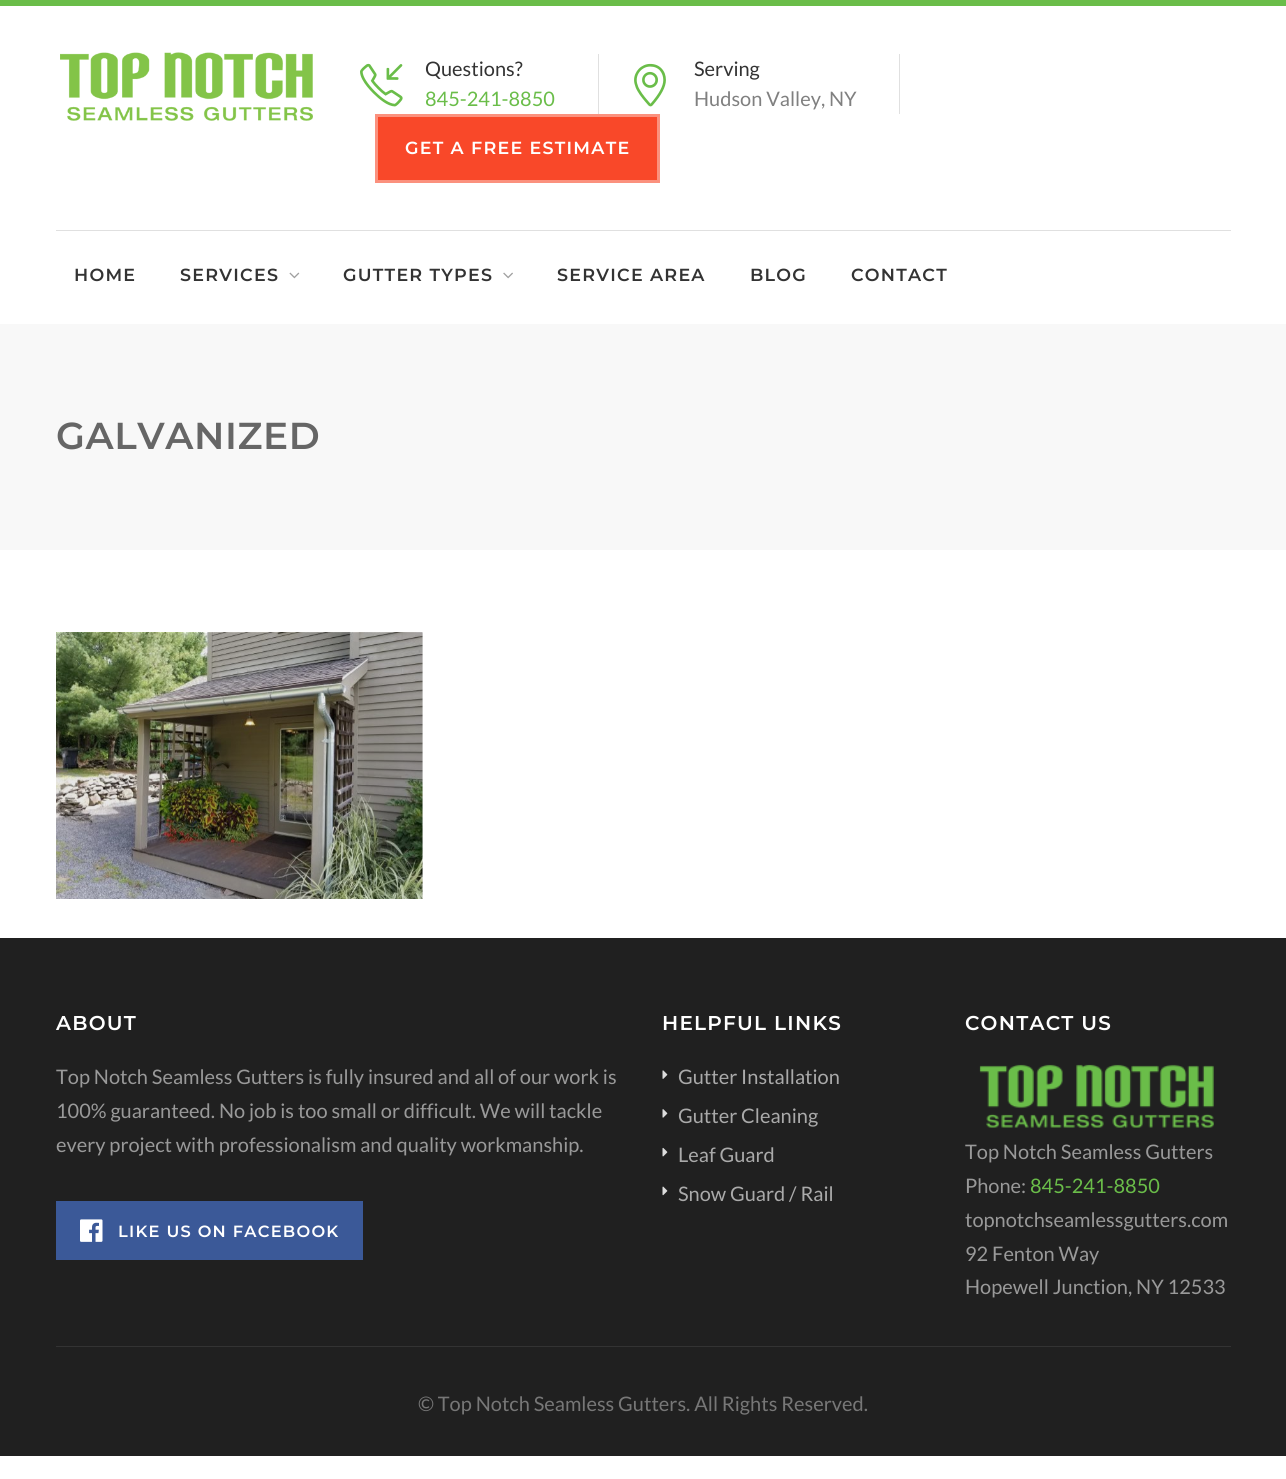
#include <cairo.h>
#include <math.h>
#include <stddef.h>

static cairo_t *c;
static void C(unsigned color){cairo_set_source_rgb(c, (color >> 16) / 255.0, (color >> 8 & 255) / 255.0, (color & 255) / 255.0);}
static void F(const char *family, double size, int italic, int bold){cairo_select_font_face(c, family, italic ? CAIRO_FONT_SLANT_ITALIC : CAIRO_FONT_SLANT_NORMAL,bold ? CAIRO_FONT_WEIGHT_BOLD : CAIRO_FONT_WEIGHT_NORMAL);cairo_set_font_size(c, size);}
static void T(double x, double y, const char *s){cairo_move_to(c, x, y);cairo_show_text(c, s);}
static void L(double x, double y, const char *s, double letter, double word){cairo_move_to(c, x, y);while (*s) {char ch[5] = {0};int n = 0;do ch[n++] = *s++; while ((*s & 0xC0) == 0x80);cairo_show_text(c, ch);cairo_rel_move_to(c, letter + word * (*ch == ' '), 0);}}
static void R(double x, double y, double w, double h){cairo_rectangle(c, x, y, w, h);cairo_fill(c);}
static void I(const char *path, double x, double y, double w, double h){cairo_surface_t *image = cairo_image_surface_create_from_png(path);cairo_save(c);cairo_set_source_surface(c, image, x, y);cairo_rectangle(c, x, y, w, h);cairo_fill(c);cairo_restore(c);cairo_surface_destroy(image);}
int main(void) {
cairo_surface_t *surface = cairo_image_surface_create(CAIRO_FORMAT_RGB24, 1286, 1479);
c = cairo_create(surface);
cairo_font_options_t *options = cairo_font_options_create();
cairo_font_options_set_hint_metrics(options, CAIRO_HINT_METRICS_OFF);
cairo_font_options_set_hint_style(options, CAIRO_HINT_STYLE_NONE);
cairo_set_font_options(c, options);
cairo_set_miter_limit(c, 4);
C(0xffffff);
cairo_paint(c);
C(0xe9e9e9);
R(422,633,1,266);
C(0x6abd49);
R(0,0,1286,6);
I("1.png",60,52,253,69);
I("2.png",360,63,43,44);
F("Lato",20,0,0);
C(0x333333);
T(425,76,"Questions?");
C(0x6abd49);
T(425,106,"845-241-8850");
C(0xe0e0e0);
R(598,54,1,60);
I("3.png",634,63,32,44);
C(0x333333);
T(694,76,"Serving");
C(0x808080);
T(694,106,"Hudson Valley, NY");
C(0xe0e0e0);
R(899,54,1,60);
C(0xf94829);
cairo_rectangle(c,376.5,115.5,282,66);
cairo_fill_preserve(c);
C(0xfb917e);
cairo_set_line_width(c,3);
cairo_stroke(c);
F("Montserrat Thin",17.5,0,0);
C(0xffffff);
L(405,154,"GET A FREE ESTIMATE",1.25,0);
C(0xe0e0e0);
R(56,230,1175,1);
C(0x333333);
L(74,281,"HOME",1.25,0);
L(180,281,"SERVICES",1.25,0);
I("4.png",289,272,11,7);
L(343,281,"GUTTER TYPES",1.25,0);
I("5.png",503,272,10,7);
L(557,281,"SERVICE AREA",1.25,0);
L(750,281,"BLOG",1.25,0);
L(851,281,"CONTACT",1.25,0);
C(0xf8f8f8);
R(0,324,1286,226);
F("Montserrat Thin",37.5,0,0);
C(0x666666);
L(56,449,"GALVANIZED",.6,0);
I("6.png",56,632,367,267);
C(0x202020);
R(0,938,1286,518);
F("Montserrat Thin",20,0,0);
C(0xffffff);
L(56,1030,"ABOUT",1.25,0);
F("Lato",20,0,0);
C(0x999999);
T(56,1084,"Top Notch Seamless Gutters is fully insured and all of our work is");
T(56,1118,"100% guaranteed. No job is too small or difficult. We will tackle");
T(56,1152,"every project with professionalism and quality workmanship.");
C(0x3b5998);
R(56,1201,307,59);
I("7.png",80,1219,23,23);
F("Montserrat Thin",16.25,0,0);
C(0xffffff);
L(118,1237,"LIKE US ON FACEBOOK",1.25,0);
F("Montserrat Thin",20,0,0);
L(662,1030,"HELPFUL LINKS",1.25,0);
I("8.png",662,1070,6,9);
F("Lato",20,0,0);
C(0xaaaaaa);
T(678,1084,"Gutter Installation");
I("9.png",662,1109,6,9);
T(678,1123,"Gutter Cleaning");
I("10.png",662,1147,6,10);
T(678,1162,"Leaf Guard");
I("11.png",662,1186,6,10);
T(678,1201,"Snow Guard / Rail");
F("Montserrat Thin",20,0,0);
C(0xffffff);
L(965,1030,"CONTACT US",1.25,0);
I("12.png",979,1064,235,64);
F("Lato",20,0,0);
C(0x999999);
T(965,1159,"Top Notch Seamless Gutters");
T(965,1193,"Phone:");
C(0x6abd49);
T(1030,1193,"845-241-8850");
C(0x999999);
T(965,1227,"topnotchseamlessgutters.com");
T(965,1261,"92 Fenton Way");
T(965,1294,"Hopewell Junction, NY 12533");
C(0x333333);
R(56,1346,1175,1);
C(0x777777);
T(418,1411,"© Top Notch Seamless Gutters. All Rights Reserved.");
cairo_surface_write_to_png(surface, "o.png");
cairo_font_options_destroy(options);
cairo_destroy(c);
cairo_surface_destroy(surface);
return 0;
}
